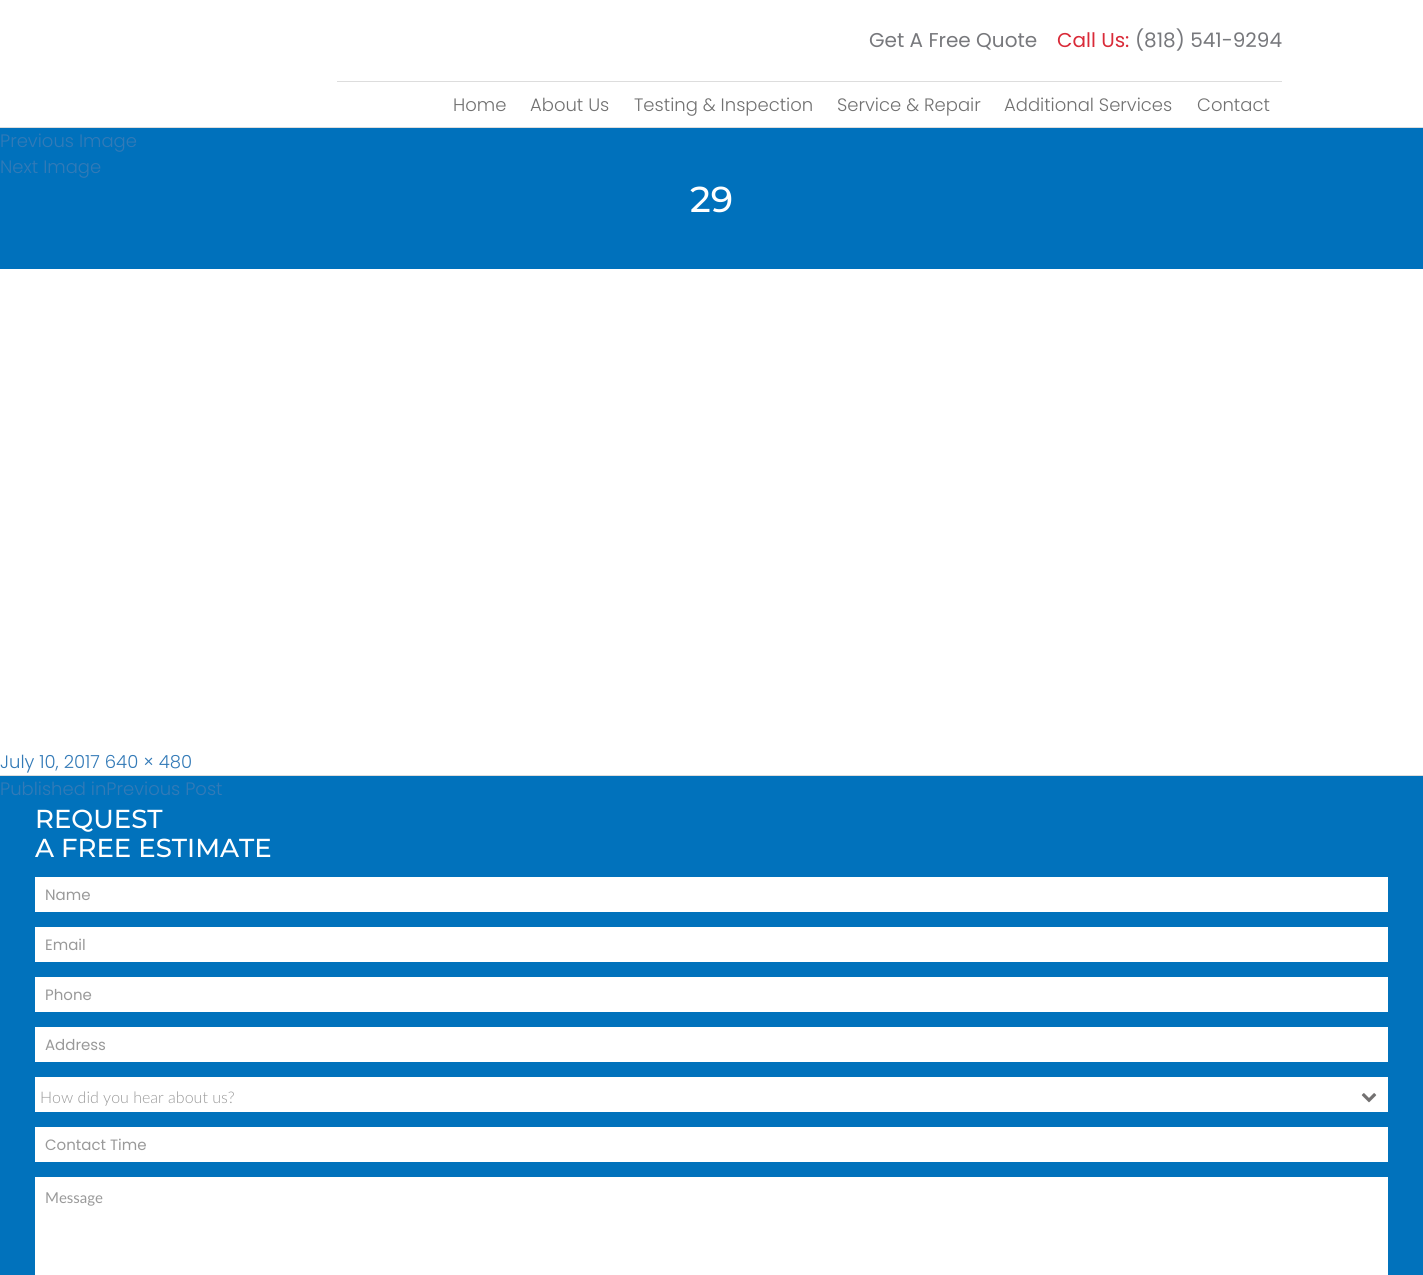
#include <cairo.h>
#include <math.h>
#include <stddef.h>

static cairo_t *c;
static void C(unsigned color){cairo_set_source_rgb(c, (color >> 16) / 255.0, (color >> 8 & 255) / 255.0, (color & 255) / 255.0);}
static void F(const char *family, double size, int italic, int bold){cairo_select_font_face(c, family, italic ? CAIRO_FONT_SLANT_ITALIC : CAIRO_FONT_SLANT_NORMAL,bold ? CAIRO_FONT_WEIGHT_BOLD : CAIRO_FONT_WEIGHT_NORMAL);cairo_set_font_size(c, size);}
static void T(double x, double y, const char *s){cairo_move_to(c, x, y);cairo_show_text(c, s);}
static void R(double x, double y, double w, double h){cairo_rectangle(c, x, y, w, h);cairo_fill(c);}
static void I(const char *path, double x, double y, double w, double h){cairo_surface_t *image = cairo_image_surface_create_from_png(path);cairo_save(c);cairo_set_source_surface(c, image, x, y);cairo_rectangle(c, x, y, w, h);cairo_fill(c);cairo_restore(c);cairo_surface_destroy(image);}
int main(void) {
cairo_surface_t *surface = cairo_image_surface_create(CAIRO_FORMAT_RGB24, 1423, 1275);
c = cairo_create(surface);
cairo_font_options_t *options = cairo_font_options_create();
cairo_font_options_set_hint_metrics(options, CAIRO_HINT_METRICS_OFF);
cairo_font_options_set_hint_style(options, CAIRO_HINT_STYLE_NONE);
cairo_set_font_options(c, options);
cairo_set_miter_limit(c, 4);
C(0xffffff);
cairo_paint(c);
F("Poppins",20,0,0);
C(0x77787c);
T(869,47,"Get A Free Quote");
C(0xd92a38);
T(1057,47,"Call Us:");
C(0x77787c);
T(1135,47,"(818) 541-9294");
C(0xdddddd);
R(337,81,945,1);
F("Poppins Light",18,0,0);
C(0x717171);
T(453,111,"Home");
T(530,111,"About Us");
T(634,111,"Testing & Inspection");
T(837,111,"Service & Repair");
T(1004,111,"Additional Services");
T(1197,111,"Contact");
C(0xdddddd);
R(0,127,1423,1);
C(0x0071bc);
R(0,128,1423,141);
C(0x337ab7);
T(0,147,"Previous Image");
T(0,173,"Next Image");
F("Montserrat Medium",36,0,0);
C(0xffffff);
T(690,212,"29");
F("Poppins Light",18,0,0);
C(0x337ab7);
T(0,768,"July 10, 2017 640 × 480");
C(0xdddddd);
R(0,775,1423,1);
C(0x0172bc);
R(0,776,1423,499);
C(0x337ab7);
T(0,795,"Published inPrevious Post");
F("Montserrat Medium",26,0,0);
C(0xffffff);
T(35,828,"REQUEST");
T(35,857,"A FREE ESTIMATE");
R(35,877,1353,35);
F("Poppins",15,0,0);
C(0x999999);
T(45,900,"Name");
C(0xffffff);
R(35,927,1353,35);
C(0x999999);
T(45,950,"Email");
C(0xffffff);
R(35,977,1353,35);
C(0x999999);
T(45,1000,"Phone");
C(0xffffff);
R(35,1027,1353,35);
C(0x999999);
T(45,1050,"Address");
C(0xffffff);
R(35,1077,1353,35);
F("Lato Light",16,0,0);
C(0x999999);
T(40,1103,"How did you hear about us?");
I("1.png",1361,1093,16,10);
C(0xffffff);
R(35,1127,1353,35);
F("Poppins",15,0,0);
C(0x999999);
T(45,1150,"Contact Time");
C(0xffffff);
R(35,1177,1353,98);
F("Lato",15,0,0);
C(0x999999);
T(45,1203,"Message");
cairo_surface_write_to_png(surface, "o.png");
cairo_font_options_destroy(options);
cairo_destroy(c);
cairo_surface_destroy(surface);
return 0;
}
